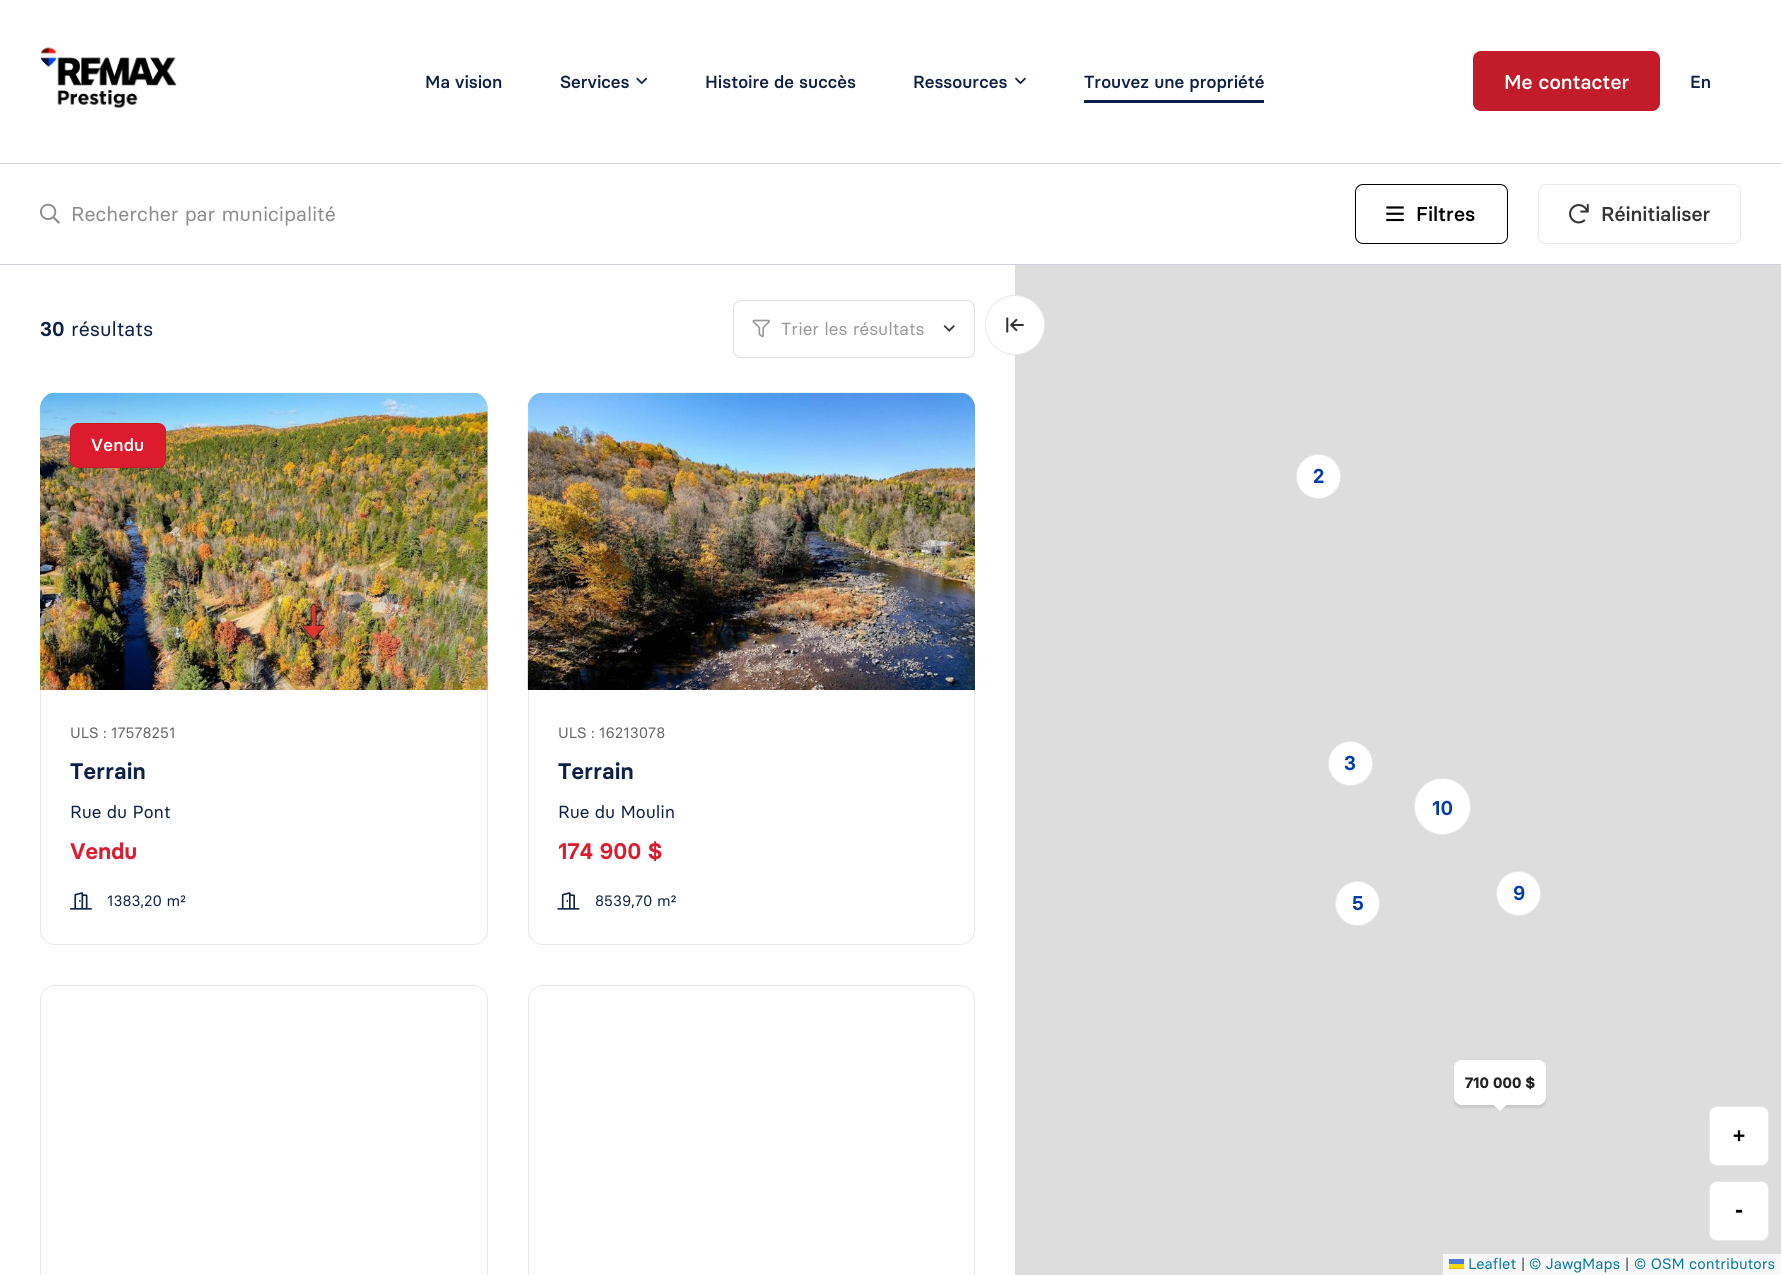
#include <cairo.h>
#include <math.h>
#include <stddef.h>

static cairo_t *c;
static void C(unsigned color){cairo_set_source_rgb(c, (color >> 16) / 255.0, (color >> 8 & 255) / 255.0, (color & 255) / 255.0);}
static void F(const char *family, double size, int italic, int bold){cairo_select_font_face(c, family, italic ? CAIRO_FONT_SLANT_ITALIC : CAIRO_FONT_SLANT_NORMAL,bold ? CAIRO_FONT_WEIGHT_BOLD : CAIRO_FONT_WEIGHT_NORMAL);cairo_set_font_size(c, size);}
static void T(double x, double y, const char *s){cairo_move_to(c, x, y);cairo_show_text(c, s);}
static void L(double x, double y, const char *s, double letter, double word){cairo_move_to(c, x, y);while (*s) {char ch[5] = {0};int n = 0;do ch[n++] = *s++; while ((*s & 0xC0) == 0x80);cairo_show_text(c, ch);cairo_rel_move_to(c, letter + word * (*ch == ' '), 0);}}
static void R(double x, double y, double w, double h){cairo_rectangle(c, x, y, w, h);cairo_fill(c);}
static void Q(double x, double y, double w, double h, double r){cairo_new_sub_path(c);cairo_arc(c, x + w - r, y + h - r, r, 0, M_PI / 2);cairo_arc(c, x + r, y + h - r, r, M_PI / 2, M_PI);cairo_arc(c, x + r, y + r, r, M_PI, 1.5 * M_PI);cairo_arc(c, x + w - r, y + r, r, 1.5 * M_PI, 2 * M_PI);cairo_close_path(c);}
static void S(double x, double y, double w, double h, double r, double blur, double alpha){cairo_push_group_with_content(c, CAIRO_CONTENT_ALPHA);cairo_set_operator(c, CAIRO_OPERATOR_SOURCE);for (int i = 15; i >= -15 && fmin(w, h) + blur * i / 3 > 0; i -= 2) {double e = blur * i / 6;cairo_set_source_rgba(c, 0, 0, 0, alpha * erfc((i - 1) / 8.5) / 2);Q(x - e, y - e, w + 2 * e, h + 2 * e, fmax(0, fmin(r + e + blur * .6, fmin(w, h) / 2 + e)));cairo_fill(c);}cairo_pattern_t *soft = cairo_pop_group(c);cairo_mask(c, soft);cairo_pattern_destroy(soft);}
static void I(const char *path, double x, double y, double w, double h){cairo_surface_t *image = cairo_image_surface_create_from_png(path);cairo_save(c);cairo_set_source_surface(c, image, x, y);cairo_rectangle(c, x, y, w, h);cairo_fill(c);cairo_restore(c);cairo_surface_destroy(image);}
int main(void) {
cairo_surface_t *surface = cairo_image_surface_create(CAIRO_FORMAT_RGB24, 1781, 1275);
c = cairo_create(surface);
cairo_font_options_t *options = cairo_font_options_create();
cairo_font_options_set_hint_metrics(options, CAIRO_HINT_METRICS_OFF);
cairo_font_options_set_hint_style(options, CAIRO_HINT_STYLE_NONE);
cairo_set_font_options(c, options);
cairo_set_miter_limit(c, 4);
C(0xffffff);
cairo_paint(c);
I("1.png",40,47,137,61);
F("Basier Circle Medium",17.5,0,0);
C(0x0e2048);
T(425,88,"Ma vision");
T(560,88,"Services");
I("2.png",636,77,12,8);
T(705,88,"Histoire de succès");
T(913,88,"Ressources");
I("3.png",1015,77,11,8);
T(1084,88,"Trouvez une propriété");
R(1084,100,180,3);
C(0xc21b2a);
Q(1473,51,187,60,8);
cairo_fill(c);
F("Basier Circle Medium",20,0,0);
C(0xffffff);
T(1504,89,"Me contacter");
F("Basier Circle Medium",17.5,0,0);
C(0x0e2048);
T(1690,88,"En");
C(0xcfd2da);
R(0,163,1781,1);
R(0,264,1781,1);
I("4.png",40,203,20,21);
F("Basier Circle",20,0,0);
C(0x8c8c8f);
T(71,221,"Rechercher par municipalité");
Q(1355.5,184.5,152,59,7.5);
C(0x000000);
cairo_set_line_width(c,1);
cairo_stroke(c);
I("5.png",1386,206,18,16);
F("Basier Circle Medium",20,0,0);
T(1416,221,"Filtres");
Q(1538.5,184.5,202,59,7.5);
C(0xe8e8e9);
cairo_stroke(c);
I("6.png",1569,204,20,20);
C(0x333333);
T(1601,221,"Réinitialiser");
F("Basier Circle SemiBold",20,0,0);
C(0x0e2048);
T(40,336,"30");
F("Basier Circle",20,0,0);
T(71,336,"résultats");
Q(733.5,300.5,241,57,7.5);
C(0xdedfe3);
cairo_stroke(c);
I("7.png",752,319,18,19);
F("Basier Circle",17.5,0,0);
C(0x98999b);
T(781,335,"Trier les résultats");
I("8.png",943,325,12,7);
Q(40.5,393.5,447,551,14.5);
C(0xe8e8e9);
cairo_stroke(c);
I("9.png",40,392,448,298);
C(0xdc1c2e);
Q(70,423,96,45,8);
cairo_fill(c);
Q(70.5,423.5,95,44,7.5);
cairo_set_source_rgba(c,0.098,0.098,0.118,0.1);
cairo_stroke(c);
F("Basier Circle Medium",17.5,0,0);
C(0xffffff);
L(91,451,"Vendu",.25,0);
F("Basier Circle",15,0,0);
C(0x636368);
T(70,738,"ULS : 17578251");
F("Basier Circle SemiBold",22.5,0,0);
C(0x0e2048);
L(70,779,"Terrain",.25,0);
F("Basier Circle",17.5,0,0);
T(70,818,"Rue du Pont");
F("Basier Circle SemiBold",22.5,0,0);
C(0xdc1c2e);
T(70,859,"Vendu");
I("10.png",70,892,22,18);
F("Basier Circle",15,0,0);
C(0x0e2048);
T(107,906,"1383,20 m²");
Q(528.5,393.5,446,551,14.5);
C(0xe8e8e9);
cairo_stroke(c);
I("11.png",527,392,448,298);
C(0x636368);
T(558,738,"ULS : 16213078");
F("Basier Circle SemiBold",22.5,0,0);
C(0x0e2048);
L(558,779,"Terrain",.25,0);
F("Basier Circle",17.5,0,0);
T(558,818,"Rue du Moulin");
F("Basier Circle SemiBold",22.5,0,0);
C(0xdc1c2e);
T(558,859,"174 900 $");
I("12.png",557,892,23,18);
F("Basier Circle",15,0,0);
C(0x0e2048);
T(595,906,"8539,70 m²");
Q(40.5,985.5,447,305,14.5);
C(0xe8e8e9);
cairo_stroke(c);
Q(528.5,985.5,446,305,14.5);
cairo_stroke(c);
C(0xdddddd);
R(1015,265,766,1010);
C(0xffffff);
cairo_arc(c,1015,325,30,0,2 * M_PI);
cairo_fill(c);
cairo_arc(c,1015,325,29.5,0,2 * M_PI);
cairo_set_source_rgba(c,0.098,0.098,0.118,0.1);
cairo_stroke(c);
I("13.png",1006,317,18,16);
C(0xffffff);
cairo_arc(c,1318.5,476.5,22.5,0,2 * M_PI);
cairo_fill(c);
cairo_arc(c,1318.5,476.5,22,0,2 * M_PI);
cairo_set_source_rgba(c,0.098,0.098,0.118,0.1);
cairo_stroke(c);
F("Basier Circle SemiBold",20,0,0);
C(0x003da5);
T(1313,483,"2");
C(0xffffff);
cairo_new_path(c);
cairo_arc(c,1350.5,763.5,22.5,0,2 * M_PI);
cairo_fill(c);
cairo_arc(c,1350.5,763.5,22,0,2 * M_PI);
cairo_set_source_rgba(c,0.098,0.098,0.118,0.1);
cairo_stroke(c);
C(0x003da5);
T(1344,770,"3");
C(0xffffff);
cairo_new_path(c);
cairo_arc(c,1442.5,806.5,28.5,0,2 * M_PI);
cairo_fill(c);
cairo_arc(c,1442.5,806.5,28,0,2 * M_PI);
cairo_set_source_rgba(c,0.098,0.098,0.118,0.1);
cairo_stroke(c);
C(0x003da5);
T(1432,815,"10");
C(0xffffff);
cairo_new_path(c);
cairo_arc(c,1518.5,893.5,22.5,0,2 * M_PI);
cairo_fill(c);
cairo_arc(c,1518.5,893.5,22,0,2 * M_PI);
cairo_set_source_rgba(c,0.098,0.098,0.118,0.1);
cairo_stroke(c);
C(0x003da5);
T(1513,900,"9");
C(0xffffff);
cairo_new_path(c);
cairo_arc(c,1357.5,903.5,22.5,0,2 * M_PI);
cairo_fill(c);
cairo_arc(c,1357.5,903.5,22,0,2 * M_PI);
cairo_set_source_rgba(c,0.098,0.098,0.118,0.1);
cairo_stroke(c);
C(0x003da5);
T(1352,910,"5");
C(0x000000);
S(1454,1063,92,45,8,1,.1);
C(0xffffff);
Q(1454.5,1060.5,91,44,7.5);
cairo_fill_preserve(c);
cairo_stroke(c);
F("Basier Circle",15,0,1);
C(0x222222);
T(1465,1088,"710 000 $");
C(0xffffff);
cairo_new_path(c);
cairo_move_to(c,1492.5,1104);
cairo_line_to(c,1507.5,1104);
cairo_line_to(c,1500,1111);
cairo_close_path(c);
cairo_fill(c);
Q(1709,1106,60,60,8);
cairo_fill(c);
Q(1709.5,1106.5,59,59,7.5);
cairo_set_source_rgba(c,0.098,0.098,0.118,0.1);
cairo_stroke(c);
F("DejaVu Sans Mono",20,0,1);
C(0x000000);
T(1733,1142,"+");
C(0xffffff);
Q(1709,1181,60,60,8);
cairo_fill(c);
Q(1709.5,1181.5,59,59,7.5);
cairo_set_source_rgba(c,0.098,0.098,0.118,0.1);
cairo_stroke(c);
C(0x000000);
T(1733,1217,"-");
C(0xf8f8f8);
R(1443,1254,338,21);
F("Basier Circle",15,0,0);
C(0x0078a8);
T(1468,1269,"Leaflet");
C(0x4c7be1);
R(1449,1259,15,5);
C(0xffd500);
R(1449,1264,15,4);
C(0xe0bc00);
R(1449,1268,15,1);
C(0x333333);
T(1521,1269,"|");
C(0x0078a8);
T(1529,1269,"© JawgMaps");
C(0x333333);
T(1625,1269,"|");
C(0x0078a8);
T(1634,1269,"© OSM contributors");
cairo_surface_write_to_png(surface, "o.png");
cairo_font_options_destroy(options);
cairo_destroy(c);
cairo_surface_destroy(surface);
return 0;
}
